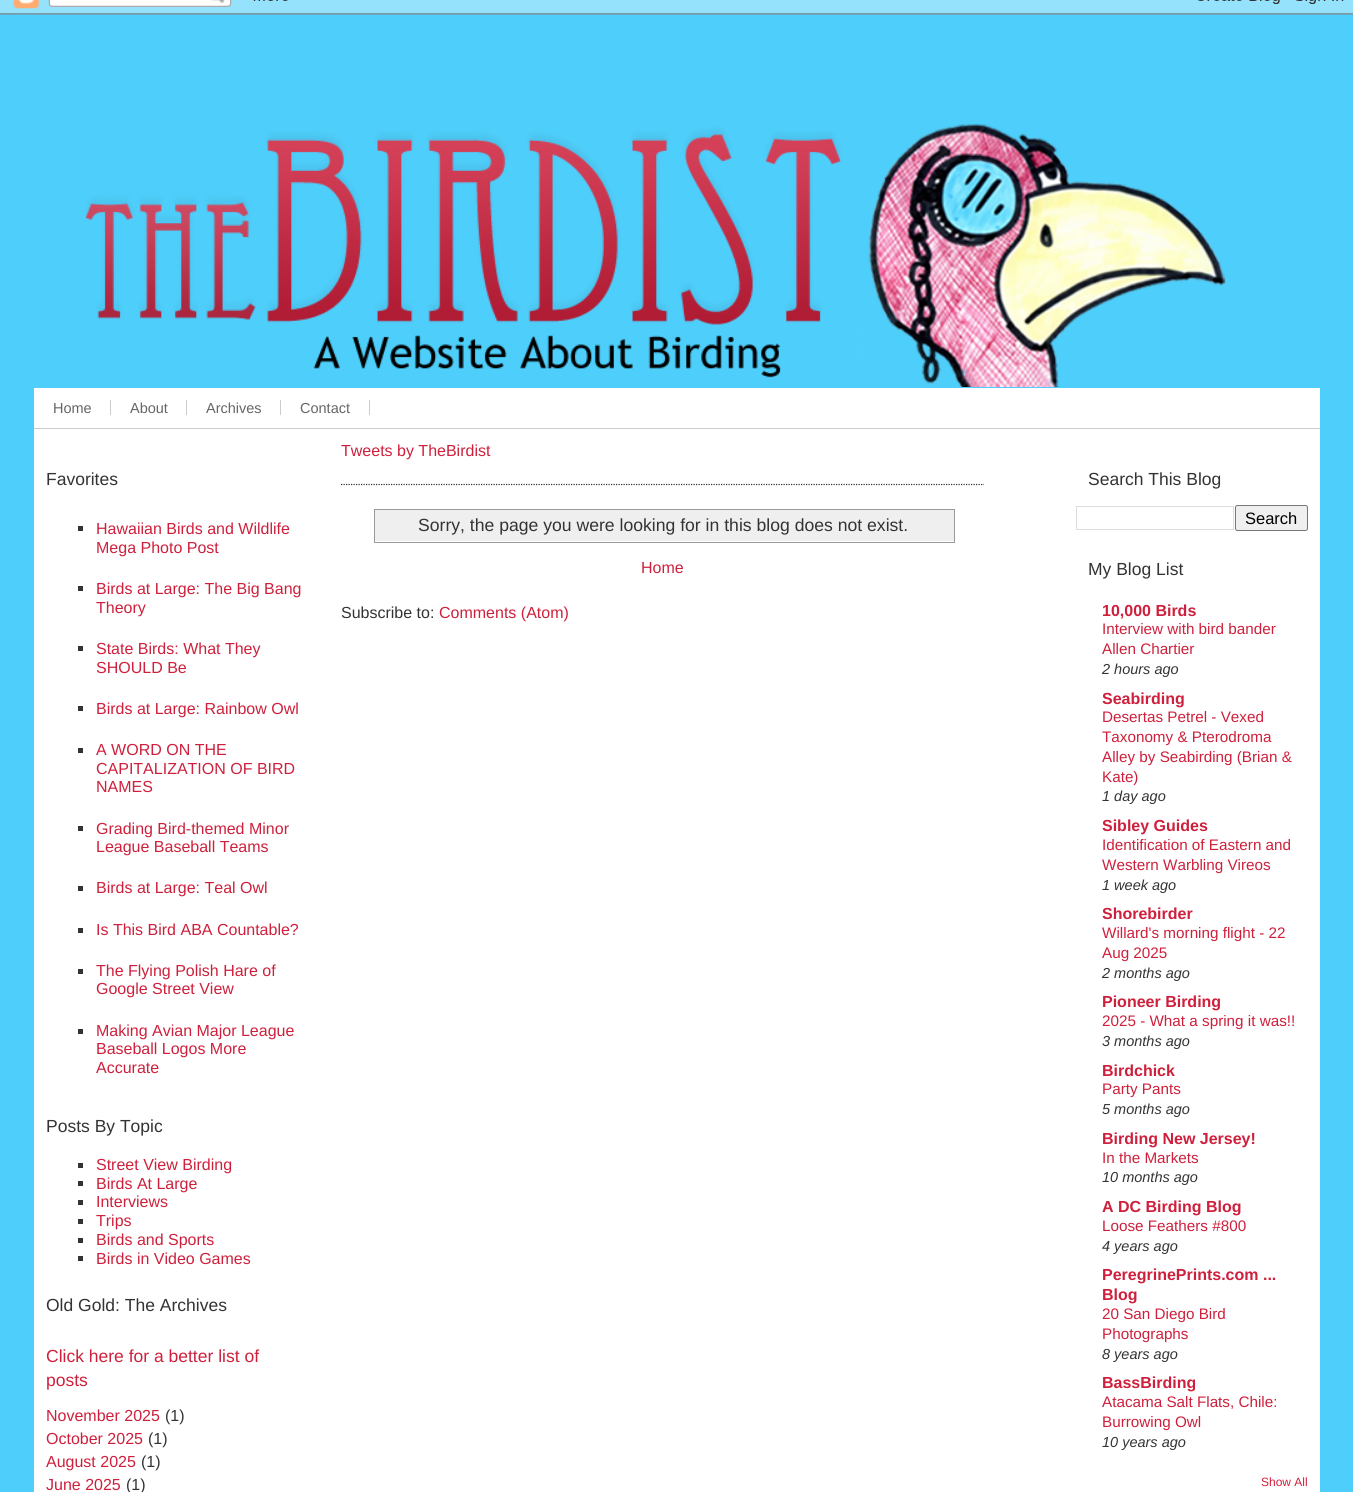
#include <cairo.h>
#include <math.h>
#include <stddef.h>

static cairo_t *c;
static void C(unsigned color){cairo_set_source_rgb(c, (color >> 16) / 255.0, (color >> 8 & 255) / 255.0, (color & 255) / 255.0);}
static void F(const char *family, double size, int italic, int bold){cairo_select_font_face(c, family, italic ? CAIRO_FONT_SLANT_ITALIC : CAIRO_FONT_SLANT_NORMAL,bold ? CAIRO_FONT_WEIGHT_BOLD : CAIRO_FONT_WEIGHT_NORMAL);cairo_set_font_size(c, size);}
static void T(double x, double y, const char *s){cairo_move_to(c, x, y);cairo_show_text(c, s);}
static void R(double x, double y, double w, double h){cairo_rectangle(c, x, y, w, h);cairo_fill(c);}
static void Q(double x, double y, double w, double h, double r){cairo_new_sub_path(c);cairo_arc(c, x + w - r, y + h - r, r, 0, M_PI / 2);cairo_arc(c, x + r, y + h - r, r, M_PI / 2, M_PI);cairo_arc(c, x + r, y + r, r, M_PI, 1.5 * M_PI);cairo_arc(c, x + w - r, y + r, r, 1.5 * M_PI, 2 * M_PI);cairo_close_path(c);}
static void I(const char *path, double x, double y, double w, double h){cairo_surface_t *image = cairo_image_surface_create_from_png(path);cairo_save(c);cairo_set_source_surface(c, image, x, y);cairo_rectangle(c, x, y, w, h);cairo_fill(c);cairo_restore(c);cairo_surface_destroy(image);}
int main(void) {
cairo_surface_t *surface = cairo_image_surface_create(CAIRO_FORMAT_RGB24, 1353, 1492);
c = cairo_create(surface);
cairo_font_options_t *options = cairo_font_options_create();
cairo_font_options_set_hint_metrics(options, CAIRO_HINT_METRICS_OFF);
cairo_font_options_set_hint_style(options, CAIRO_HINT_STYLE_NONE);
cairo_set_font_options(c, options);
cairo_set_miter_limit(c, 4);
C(0x4ecefa);
cairo_paint(c);
I("1.png",0,0,1353,15);
C(0xffffff);
R(34,429,1286,1063);
I("2.png",85,124,1141,263);
R(34,388,1286,40);
C(0xcccccc);
R(34,428,1286,1);
R(110,400,1,15);
F("Liberation Sans",14.5,0,0);
C(0x666666);
T(53,413,"Home");
C(0xcccccc);
R(186,400,1,15);
C(0x666666);
T(130,413,"About");
C(0xcccccc);
R(280,400,1,15);
C(0x666666);
T(206,413,"Archives");
C(0xcccccc);
R(369,400,1,15);
C(0x666666);
T(300,413,"Contact");
F("Liberation Sans",17.5,0,0);
C(0x333333);
T(46,485,"Favorites");
R(78,526,5,5);
F("Liberation Sans",16,0,0);
C(0xce203c);
T(96,534,"Hawaiian Birds and Wildlife");
T(96,553,"Mega Photo Post");
C(0x333333);
R(78,586,5,5);
C(0xce203c);
T(96,594,"Birds at Large: The Big Bang");
T(96,613,"Theory");
C(0x333333);
R(78,646,5,5);
C(0xce203c);
T(96,654,"State Birds: What They");
T(96,673,"SHOULD Be");
C(0x333333);
R(78,706,5,5);
C(0xce203c);
T(96,714,"Birds at Large: Rainbow Owl");
C(0x333333);
R(78,748,5,5);
C(0xce203c);
T(96,755,"A WORD ON THE");
T(96,774,"CAPITALIZATION OF BIRD");
T(96,792,"NAMES");
C(0x333333);
R(78,826,5,5);
C(0xce203c);
T(96,834,"Grading Bird-themed Minor");
T(96,852,"League Baseball Teams");
C(0x333333);
R(78,886,5,5);
C(0xce203c);
T(96,893,"Birds at Large: Teal Owl");
C(0x333333);
R(78,928,5,5);
C(0xce203c);
T(96,935,"Is This Bird ABA Countable?");
C(0x333333);
R(78,969,5,5);
C(0xce203c);
T(96,976,"The Flying Polish Hare of");
T(96,994,"Google Street View");
C(0x333333);
R(78,1029,5,5);
C(0xce203c);
T(96,1036,"Making Avian Major League");
T(96,1054,"Baseball Logos More");
T(96,1073,"Accurate");
F("Liberation Sans",17.5,0,0);
C(0x333333);
T(46,1132,"Posts By Topic");
R(78,1163,5,5);
F("Liberation Sans",16,0,0);
C(0xce203c);
T(96,1170,"Street View Birding");
C(0x333333);
R(78,1181,5,5);
C(0xce203c);
T(96,1189,"Birds At Large");
C(0x333333);
R(78,1200,5,5);
C(0xce203c);
T(96,1207,"Interviews");
C(0x333333);
R(78,1219,5,5);
C(0xce203c);
T(96,1226,"Trips");
C(0x333333);
R(78,1238,5,5);
C(0xce203c);
T(96,1245,"Birds and Sports");
C(0x333333);
R(78,1256,5,5);
C(0xce203c);
T(96,1264,"Birds in Video Games");
F("Liberation Sans",17.5,0,0);
C(0x333333);
T(46,1311,"Old Gold: The Archives");
C(0xce203c);
T(46,1362,"Click here for a better list of");
T(46,1386,"posts");
F("Liberation Sans",16,0,0);
T(46,1421,"November 2025");
C(0x333333);
T(165,1421,"(1)");
C(0xce203c);
T(46,1444,"October 2025");
C(0x333333);
T(148,1444,"(1)");
C(0xce203c);
T(46,1467,"August 2025");
C(0x333333);
T(141,1467,"(1)");
C(0xce203c);
T(46,1490,"June 2025");
C(0x333333);
T(126,1490,"(1)");
cairo_new_path(c);
cairo_move_to(c,341,484.5);
cairo_line_to(c,984,484.5);
cairo_set_line_width(c,1.2);
cairo_set_dash(c,(double[]){1.25,1.25},2,0);
cairo_stroke(c);
C(0xce203c);
T(341,456,"Tweets by TheBirdist");
cairo_rectangle(c,374.5,509.5,580,33);
C(0x999999);
cairo_set_line_width(c,1);
cairo_set_dash(c,NULL,0,0);
cairo_stroke(c);
C(0xefefef);
R(375,510,579,31);
F("Liberation Sans",17.6,0,0);
C(0x333333);
T(418,531,"Sorry, the page you were looking for in this blog does not exist.");
F("Liberation Sans",16,0,0);
C(0xce203c);
T(641,573,"Home");
C(0x333333);
T(341,618,"Subscribe to:");
C(0xce203c);
T(439,618,"Comments (Atom)");
F("Liberation Sans",17.5,0,0);
C(0x333333);
T(1088,485,"Search This Blog");
cairo_rectangle(c,1076.5,506.5,157,23);
C(0xdddddd);
cairo_stroke(c);
C(0xefefef);
Q(1235.5,505.5,72,25,2);
cairo_fill_preserve(c);
C(0x767676);
cairo_stroke(c);
F("Liberation Sans",16.5,0,0);
C(0x000000);
T(1245,524,"Search");
F("Liberation Sans",17.5,0,0);
C(0x333333);
T(1088,575,"My Blog List");
F("Liberation Sans",16,0,1);
C(0xce203c);
T(1102,616,"10,000 Birds");
F("Liberation Sans",15.25,0,0);
T(1102,634,"Interview with bird bander");
T(1102,654,"Allen Chartier");
F("Liberation Sans",14.5,1,0);
C(0x333333);
T(1102,674,"2 hours ago");
F("Liberation Sans",16,0,1);
C(0xce203c);
T(1102,704,"Seabirding");
F("Liberation Sans",15.25,0,0);
T(1102,722,"Desertas Petrel - Vexed");
T(1102,742,"Taxonomy & Pterodroma");
T(1102,762,"Alley by Seabirding (Brian &");
T(1102,782,"Kate)");
F("Liberation Sans",14.5,1,0);
C(0x333333);
T(1102,801,"1 day ago");
F("Liberation Sans",16,0,1);
C(0xce203c);
T(1102,831,"Sibley Guides");
F("Liberation Sans",15.25,0,0);
T(1102,850,"Identification of Eastern and");
T(1102,870,"Western Warbling Vireos");
F("Liberation Sans",14.5,1,0);
C(0x333333);
T(1102,890,"1 week ago");
F("Liberation Sans",16,0,1);
C(0xce203c);
T(1102,919,"Shorebirder");
F("Liberation Sans",15.25,0,0);
T(1102,938,"Willard's morning flight - 22");
T(1102,958,"Aug 2025");
F("Liberation Sans",14.5,1,0);
C(0x333333);
T(1102,978,"2 months ago");
F("Liberation Sans",16,0,1);
C(0xce203c);
T(1102,1007,"Pioneer Birding");
F("Liberation Sans",15.25,0,0);
T(1102,1026,"2025 - What a spring it was!!");
F("Liberation Sans",14.5,1,0);
C(0x333333);
T(1102,1046,"3 months ago");
F("Liberation Sans",16,0,1);
C(0xce203c);
T(1102,1076,"Birdchick");
F("Liberation Sans",15.25,0,0);
T(1102,1094,"Party Pants");
F("Liberation Sans",14.5,1,0);
C(0x333333);
T(1102,1114,"5 months ago");
F("Liberation Sans",16,0,1);
C(0xce203c);
T(1102,1144,"Birding New Jersey!");
F("Liberation Sans",15.25,0,0);
T(1102,1163,"In the Markets");
F("Liberation Sans",14.5,1,0);
C(0x333333);
T(1102,1182,"10 months ago");
F("Liberation Sans",16,0,1);
C(0xce203c);
T(1102,1212,"A DC Birding Blog");
F("Liberation Sans",15.25,0,0);
T(1102,1231,"Loose Feathers #800");
F("Liberation Sans",14.5,1,0);
C(0x333333);
T(1102,1251,"4 years ago");
F("Liberation Sans",16,0,1);
C(0xce203c);
T(1102,1280,"PeregrinePrints.com ...");
T(1102,1300,"Blog");
F("Liberation Sans",15.25,0,0);
T(1102,1319,"20 San Diego Bird");
T(1102,1339,"Photographs");
F("Liberation Sans",14.5,1,0);
C(0x333333);
T(1102,1359,"8 years ago");
F("Liberation Sans",16,0,1);
C(0xce203c);
T(1102,1388,"BassBirding");
F("Liberation Sans",15.25,0,0);
T(1102,1407,"Atacama Salt Flats, Chile:");
T(1102,1427,"Burrowing Owl");
F("Liberation Sans",14.5,1,0);
C(0x333333);
T(1102,1447,"10 years ago");
F("Liberation Sans",12,0,0);
C(0xce203c);
T(1261,1486,"Show All");
cairo_surface_write_to_png(surface, "o.png");
cairo_font_options_destroy(options);
cairo_destroy(c);
cairo_surface_destroy(surface);
return 0;
}
